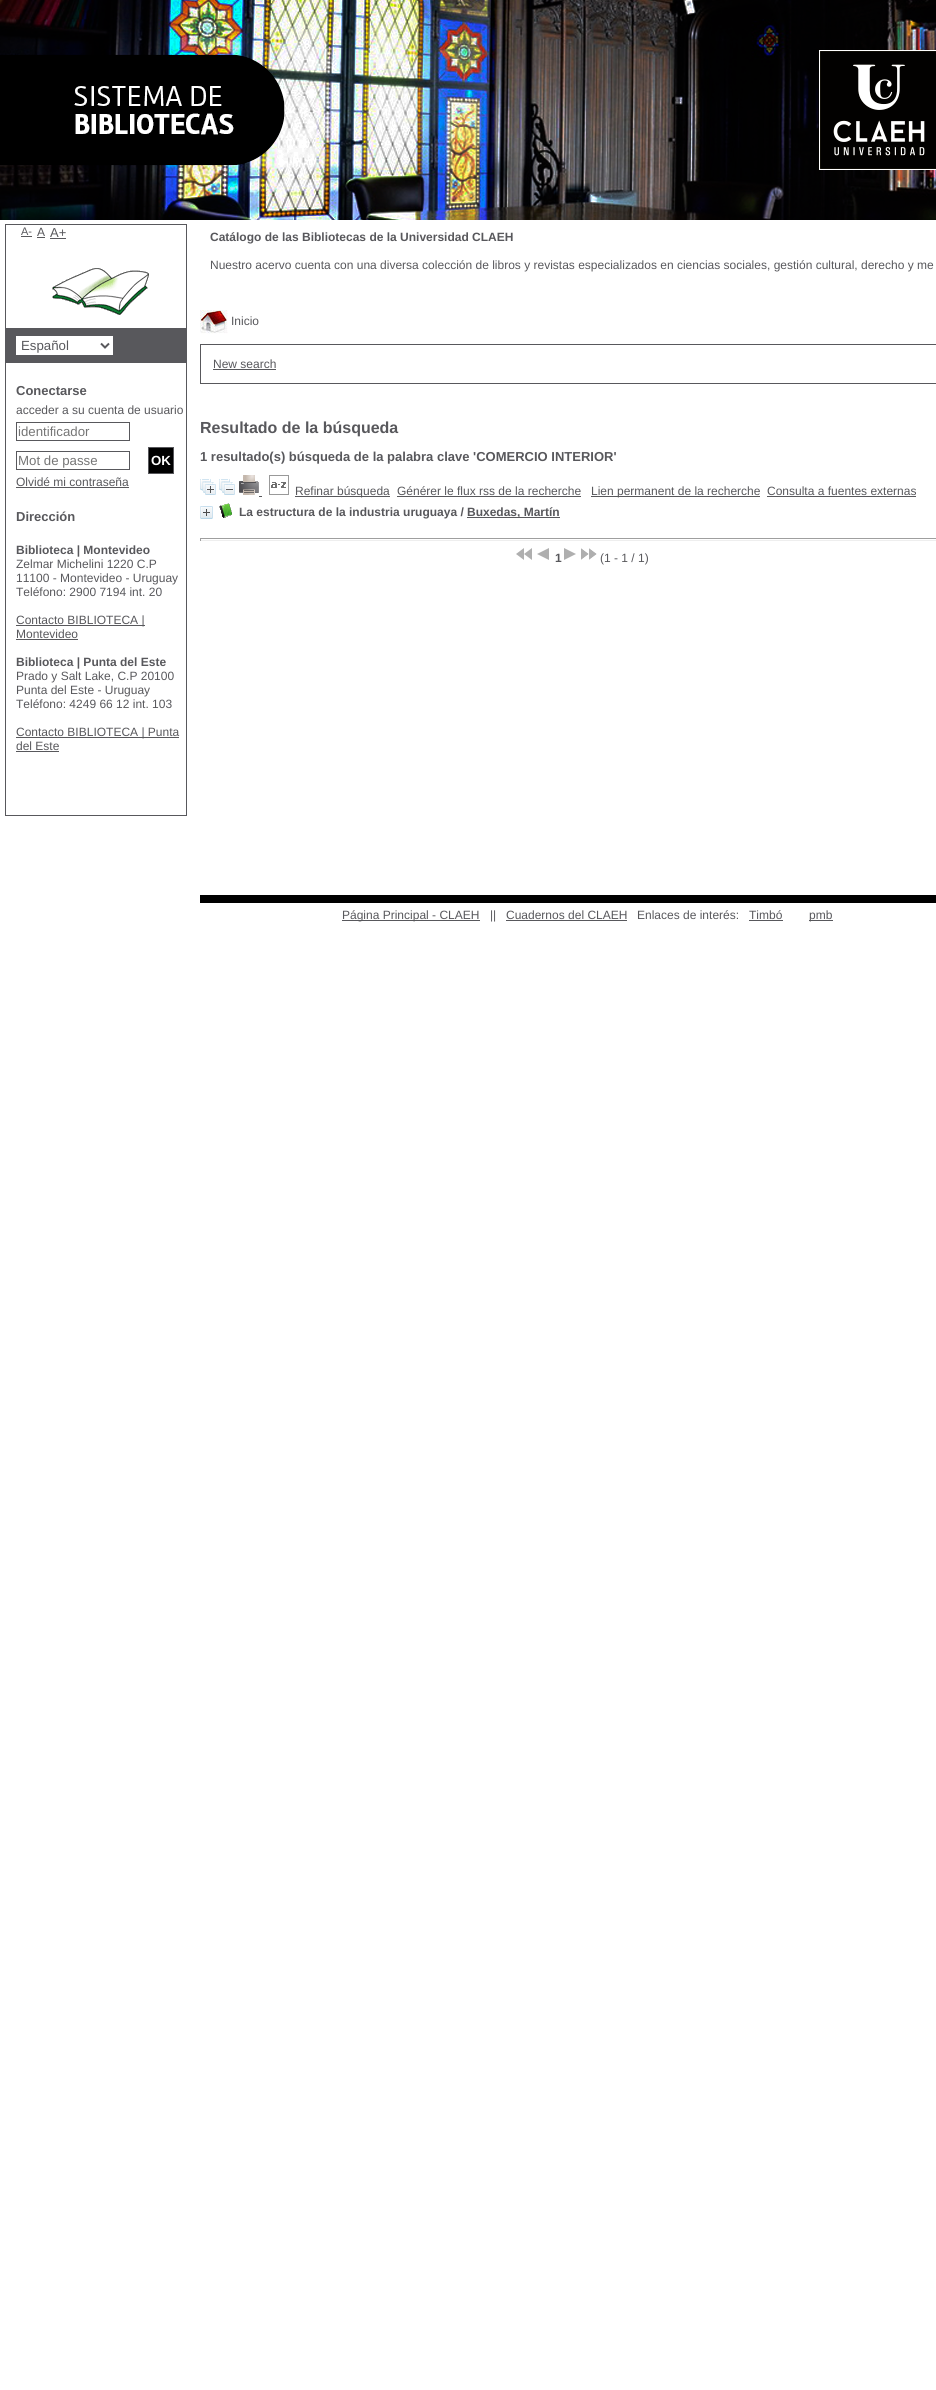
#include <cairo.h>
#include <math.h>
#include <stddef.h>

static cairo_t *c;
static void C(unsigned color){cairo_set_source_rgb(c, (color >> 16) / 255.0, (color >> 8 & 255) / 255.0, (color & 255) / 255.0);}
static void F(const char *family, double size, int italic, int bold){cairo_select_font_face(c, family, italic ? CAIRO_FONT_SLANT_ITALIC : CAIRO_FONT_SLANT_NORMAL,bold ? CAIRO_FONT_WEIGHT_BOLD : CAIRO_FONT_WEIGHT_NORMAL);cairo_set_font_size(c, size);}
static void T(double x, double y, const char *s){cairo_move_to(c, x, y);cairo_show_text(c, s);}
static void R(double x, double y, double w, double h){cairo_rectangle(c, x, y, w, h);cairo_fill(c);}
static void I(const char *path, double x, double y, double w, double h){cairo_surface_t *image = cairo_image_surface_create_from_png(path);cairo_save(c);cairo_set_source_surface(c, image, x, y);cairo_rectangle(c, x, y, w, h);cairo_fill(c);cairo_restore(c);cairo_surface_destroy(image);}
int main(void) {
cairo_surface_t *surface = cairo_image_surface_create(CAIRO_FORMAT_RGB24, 936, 2390);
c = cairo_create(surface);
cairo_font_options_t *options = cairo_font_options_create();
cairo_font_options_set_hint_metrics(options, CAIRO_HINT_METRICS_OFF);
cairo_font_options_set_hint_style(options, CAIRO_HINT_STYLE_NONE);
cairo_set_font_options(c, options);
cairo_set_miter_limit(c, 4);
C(0xffffff);
cairo_paint(c);
cairo_rectangle(c,5.5,224.5,181,591);
C(0x58585c);
cairo_set_line_width(c,1);
cairo_stroke(c);
F("Liberation Sans",11,0,0);
T(21,235,"A-");
R(21,236,11,1);
F("Liberation Sans",12,0,0);
T(37,236,"A");
R(37,237,8,1);
F("Liberation Sans",13,0,0);
T(50,237,"A+");
R(50,238,16,1);
I("1.png",52,268,97,47);
R(6,328,180,35);
C(0xffffff);
R(16,336,97,19);
cairo_new_path(c);
cairo_move_to(c,101,343.5);
cairo_line_to(c,105,347.5);
cairo_line_to(c,109,343.5);
C(0x58585c);
cairo_set_line_width(c,2);
cairo_stroke(c);
F("Liberation Sans",13.25,0,0);
T(21,350,"Español");
F("Liberation Sans",13,0,1);
T(16,395,"Conectarse");
F("Liberation Sans",12,0,0);
T(16,414,"acceder a su cuenta de usuario");
cairo_rectangle(c,16.5,422.5,113,18);
cairo_set_line_width(c,1);
cairo_stroke(c);
F("Liberation Sans",13.25,0,0);
C(0x757575);
T(18,436,"identificador");
cairo_rectangle(c,16.5,451.5,113,18);
C(0x58585c);
cairo_stroke(c);
C(0x757575);
T(18,465,"Mot de passe");
C(0x000000);
cairo_rectangle(c,148.5,447.5,25,26);
cairo_fill_preserve(c);
C(0x58585c);
cairo_stroke(c);
F("Liberation Sans",13.25,0,1);
C(0xffffff);
T(151,465,"OK");
F("Liberation Sans",12,0,0);
C(0x58585c);
T(16,486,"Olvidé mi contraseña");
R(16,487,113,1);
F("Liberation Sans",13,0,1);
T(16,521,"Dirección");
F("Liberation Sans",12,0,1);
T(16,554,"Biblioteca | Montevideo");
F("Liberation Sans",12,0,0);
T(16,568,"Zelmar Michelini 1220 C.P");
T(16,582,"11100 - Montevideo - Uruguay");
T(16,596,"Teléfono: 2900 7194 int. 20");
R(16,625,129,1);
T(16,624,"Contacto BIBLIOTECA |");
T(16,638,"Montevideo");
R(16,639,62,1);
F("Liberation Sans",12,0,1);
T(16,666,"Biblioteca | Punta del Este");
F("Liberation Sans",12,0,0);
T(16,680,"Prado y Salt Lake, C.P 20100");
T(16,694,"Punta del Este - Uruguay");
T(16,708,"Teléfono: 4249 66 12 int. 103");
R(16,737,163,1);
T(16,736,"Contacto BIBLIOTECA | Punta");
T(16,750,"del Este");
R(16,751,43,1);
I("2.png",0,0,936,220);
F("Liberation Sans",12,0,1);
T(210,241,"Catálogo de las Bibliotecas de la Universidad CLAEH");
F("Liberation Sans",12,0,0);
T(210,269,"Nuestro acervo cuenta con una diversa colección de libros y revistas especializados en ciencias sociales, gestión cultural, derecho y me");
I("3.png",200,310,28,24);
T(231,325,"Inicio");
cairo_rectangle(c,200.5,344.5,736,39);
cairo_stroke(c);
T(213,368,"New search");
R(213,369,63,1);
F("Liberation Sans",16,0,1);
T(200,433,"Resultado de la búsqueda");
F("Liberation Sans",13,0,1);
T(200,461,"1 resultado(s) búsqueda de la palabra clave 'COMERCIO INTERIOR'");
I("4.png",200,479,16,16);
I("5.png",219,479,16,16);
I("6.png",239,475,20,20);
I("7.png",269,475,20,20);
R(295,496,95,1);
F("Liberation Sans",12,0,0);
T(295,495,"Refinar búsqueda");
T(397,495,"Générer le flux rss de la recherche");
R(397,496,184,1);
R(591,496,169,1);
T(591,495,"Lien permanent de la recherche");
T(767,495,"Consulta a fuentes externas");
R(767,496,149,1);
R(259,496,3,1);
I("8.png",200,506,13,13);
I("9.png",219,503,13,15);
F("Liberation Sans",12,0,1);
T(239,516,"La estructura de la industria uruguaya /");
R(467,517,93,1);
T(467,516,"Buxedas, Martín");
C(0x9f9f9f);
R(200,538,736,1);
C(0xeeeeee);
R(200,540,736,1);
C(0x9f9f9f);
R(200,538,1,3);
I("10.png",516,548,16,12);
I("11.png",537,548,12,12);
C(0x58585c);
T(555,562,"1");
I("12.png",564,548,12,12);
I("13.png",581,548,16,12);
F("Liberation Sans",12,0,0);
T(600,562,"(1 - 1 / 1)");
C(0x000000);
R(200,895,736,8);
C(0x58585c);
R(342,920,138,1);
T(342,919,"Página Principal - CLAEH");
T(490,919,"||");
T(506,919,"Cuadernos del CLAEH");
R(506,920,121,1);
T(637,919,"Enlaces de interés:");
T(749,919,"Timbó");
R(749,920,34,1);
R(809,920,24,1);
T(809,919,"pmb");
cairo_surface_write_to_png(surface, "o.png");
cairo_font_options_destroy(options);
cairo_destroy(c);
cairo_surface_destroy(surface);
return 0;
}
